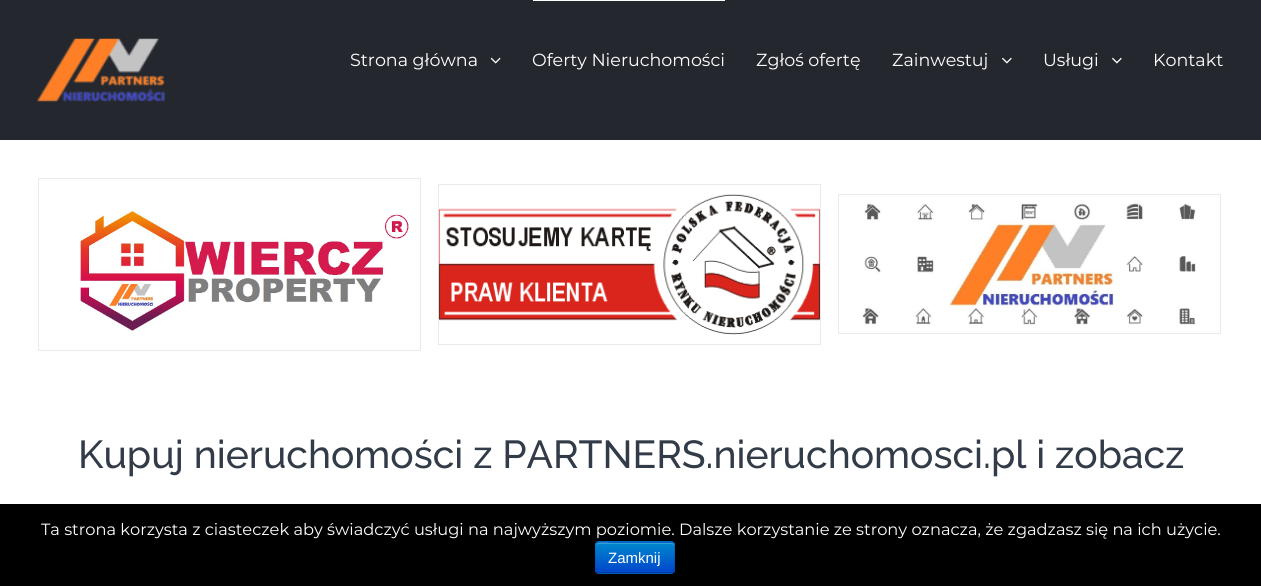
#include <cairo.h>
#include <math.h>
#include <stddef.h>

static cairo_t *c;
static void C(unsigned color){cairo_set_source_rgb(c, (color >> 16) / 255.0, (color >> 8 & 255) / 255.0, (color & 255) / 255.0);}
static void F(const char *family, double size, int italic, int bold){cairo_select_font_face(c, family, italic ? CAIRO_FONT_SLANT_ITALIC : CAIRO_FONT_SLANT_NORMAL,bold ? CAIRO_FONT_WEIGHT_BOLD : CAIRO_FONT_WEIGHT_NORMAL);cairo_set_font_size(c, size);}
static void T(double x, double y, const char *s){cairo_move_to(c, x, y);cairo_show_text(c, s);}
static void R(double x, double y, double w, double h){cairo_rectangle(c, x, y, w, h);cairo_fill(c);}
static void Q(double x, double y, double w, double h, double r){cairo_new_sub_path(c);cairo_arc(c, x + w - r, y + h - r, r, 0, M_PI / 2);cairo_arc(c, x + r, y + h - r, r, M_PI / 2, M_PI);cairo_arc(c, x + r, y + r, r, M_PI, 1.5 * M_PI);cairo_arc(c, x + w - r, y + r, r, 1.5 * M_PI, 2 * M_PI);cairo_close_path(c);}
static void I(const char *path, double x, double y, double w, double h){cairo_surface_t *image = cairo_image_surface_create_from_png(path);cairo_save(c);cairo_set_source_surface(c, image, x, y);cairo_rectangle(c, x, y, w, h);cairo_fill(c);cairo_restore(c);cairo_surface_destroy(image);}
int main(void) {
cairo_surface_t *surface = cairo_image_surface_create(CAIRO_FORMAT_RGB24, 1261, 586);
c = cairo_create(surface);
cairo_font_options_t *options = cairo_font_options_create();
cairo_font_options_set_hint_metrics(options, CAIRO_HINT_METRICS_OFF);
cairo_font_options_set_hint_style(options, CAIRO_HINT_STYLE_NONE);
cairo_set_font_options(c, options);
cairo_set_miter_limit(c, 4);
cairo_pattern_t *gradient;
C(0xffffff);
cairo_paint(c);
C(0x24272d);
R(0,0,1261,140);
I("1.png",37,38,128,64);
F("Montserrat Thin",17.5,0,0);
C(0xffffff);
T(350,66,"Strona główna");
I("2.png",490,57,11,7);
R(533,0,192,1);
T(532,66,"Oferty Nieruchomości");
T(756,66,"Zgłoś ofertę");
T(892,66,"Zainwestuj");
I("3.png",1002,57,10,7);
T(1043,66,"Usługi");
I("3.png",1112,57,10,7);
T(1153,66,"Kontakt");
cairo_rectangle(c,38.5,178.5,382,172);
C(0xe9eaee);
cairo_set_line_width(c,1);
cairo_stroke(c);
I("4.png",78,210,331,121);
cairo_rectangle(c,438.5,184.5,382,160);
cairo_stroke(c);
I("5.png",438,194,382,141);
cairo_rectangle(c,838.5,194.5,382,139);
cairo_stroke(c);
I("6.png",862,203,334,122);
F("Raleway Thin",39,0,0);
C(0x323b48);
T(78,468,"Kupuj nieruchomości z PARTNERS.nieruchomosci.pl i zobacz");
C(0x000000);
R(0,504,1261,82);
F("Montserrat Thin",16.25,0,0);
C(0xffffff);
T(41,535,"Ta strona korzysta z ciasteczek aby świadczyć usługi na najwyższym poziomie. Dalsze korzystanie ze strony oznacza, że zgadzasz się na ich użycie.");
C(0x006dcc);
Q(595,541,80,33,4);
cairo_fill(c);
cairo_save(c);
Q(595,541,80,33,4);
cairo_clip(c);
gradient = cairo_pattern_create_linear(635,543,635,573);
cairo_pattern_add_color_stop_rgba(gradient,0,0,0.533,0.8,1);
cairo_pattern_add_color_stop_rgba(gradient,1,0,0.267,0.8,1);
cairo_set_source(c,gradient);
cairo_pattern_destroy(gradient);
R(595,543,80,30);
cairo_restore(c);
cairo_set_source_rgba(c,1,1,1,0.2);
cairo_new_path(c);
cairo_move_to(c,599,544);
cairo_line_to(c,671,544);
cairo_curve_to(c,673,544,674,545,674,546);
cairo_curve_to(c,674,544,673,543,672,543);
cairo_line_to(c,611,543);
cairo_curve_to(c,610,543,596,540,596,546);
cairo_curve_to(c,596,545,597,544,599,544);
cairo_close_path(c);
cairo_fill(c);
cairo_new_path(c);
cairo_move_to(c,673.5,572);
cairo_line_to(c,671.5,573);
cairo_line_to(c,598.5,573);
cairo_line_to(c,596.5,572);
cairo_set_source_rgba(c,0,0,0,0.25);
cairo_set_line_width(c,1.2);
cairo_stroke(c);
cairo_new_path(c);
cairo_move_to(c,596.5,572);
cairo_curve_to(c,594.5,570,595.5,560.5,595.5,557.5);
cairo_curve_to(c,595.5,539.5,592.5,542,611,542);
cairo_line_to(c,659,542);
cairo_curve_to(c,677.5,542,674.5,539.5,674.5,557.5);
cairo_curve_to(c,674.5,560.5,675.5,570,673.5,572);
cairo_set_source_rgba(c,0,0,0,0.1);
cairo_stroke(c);
F("Liberation Sans",15,0,0);
C(0xffffff);
T(608,563,"Zamknij");
cairo_surface_write_to_png(surface, "o.png");
cairo_font_options_destroy(options);
cairo_destroy(c);
cairo_surface_destroy(surface);
return 0;
}
